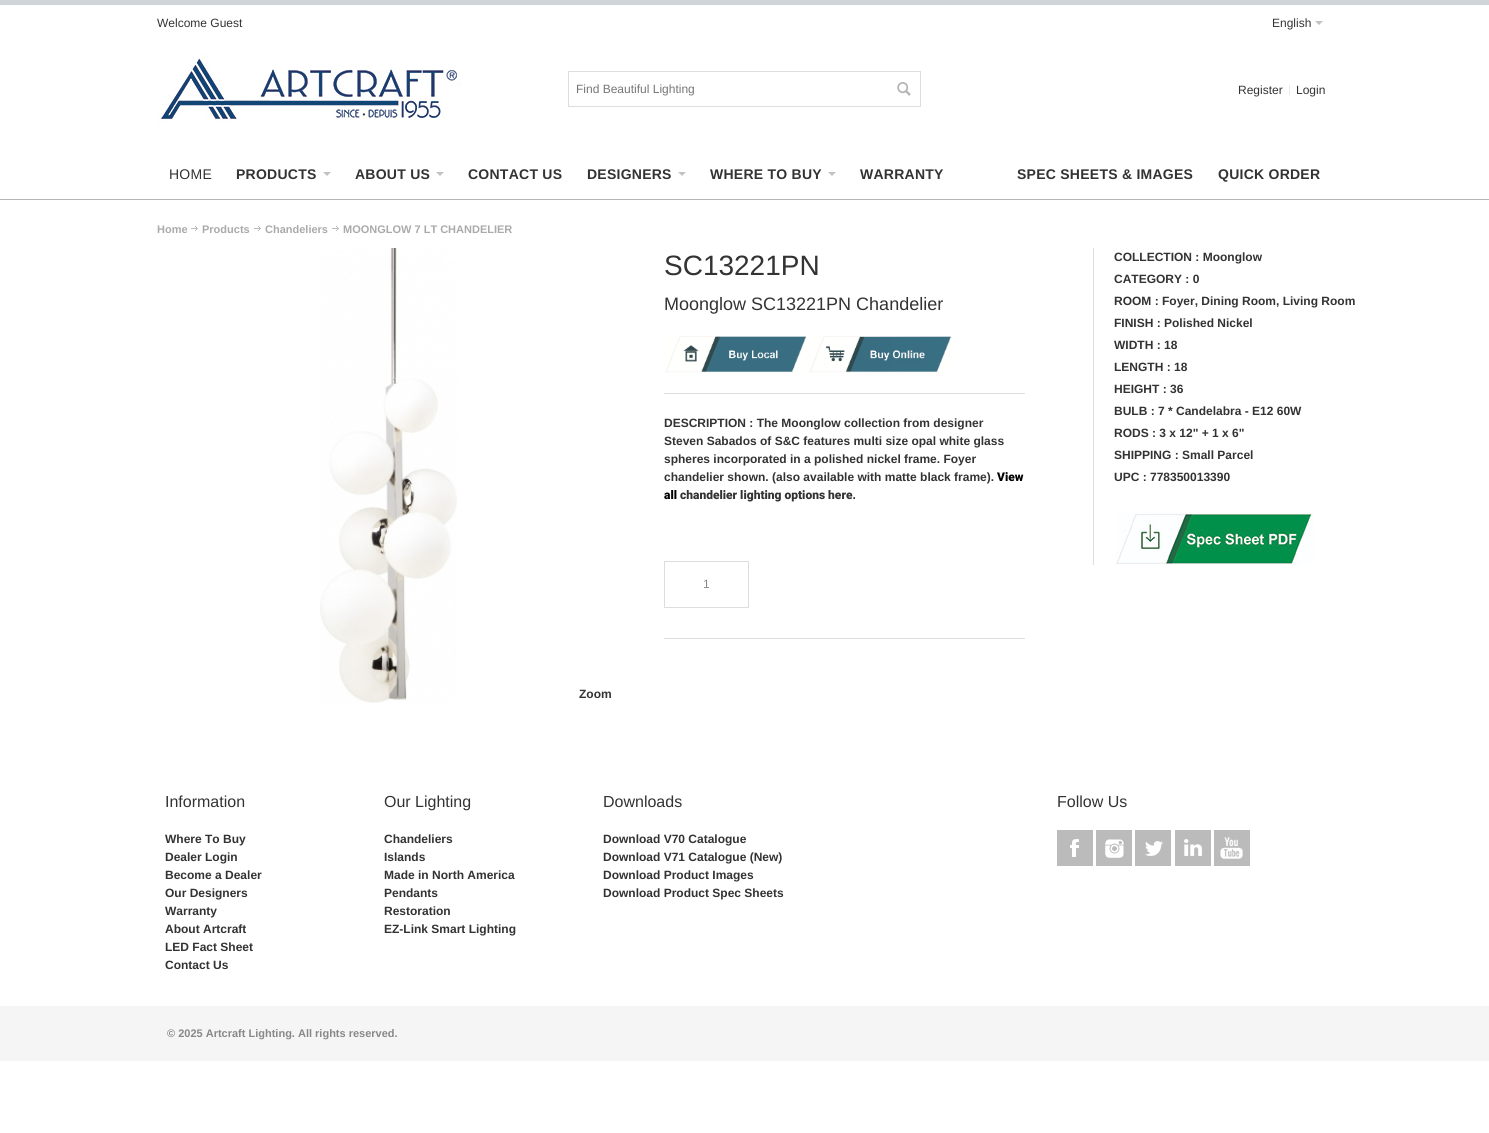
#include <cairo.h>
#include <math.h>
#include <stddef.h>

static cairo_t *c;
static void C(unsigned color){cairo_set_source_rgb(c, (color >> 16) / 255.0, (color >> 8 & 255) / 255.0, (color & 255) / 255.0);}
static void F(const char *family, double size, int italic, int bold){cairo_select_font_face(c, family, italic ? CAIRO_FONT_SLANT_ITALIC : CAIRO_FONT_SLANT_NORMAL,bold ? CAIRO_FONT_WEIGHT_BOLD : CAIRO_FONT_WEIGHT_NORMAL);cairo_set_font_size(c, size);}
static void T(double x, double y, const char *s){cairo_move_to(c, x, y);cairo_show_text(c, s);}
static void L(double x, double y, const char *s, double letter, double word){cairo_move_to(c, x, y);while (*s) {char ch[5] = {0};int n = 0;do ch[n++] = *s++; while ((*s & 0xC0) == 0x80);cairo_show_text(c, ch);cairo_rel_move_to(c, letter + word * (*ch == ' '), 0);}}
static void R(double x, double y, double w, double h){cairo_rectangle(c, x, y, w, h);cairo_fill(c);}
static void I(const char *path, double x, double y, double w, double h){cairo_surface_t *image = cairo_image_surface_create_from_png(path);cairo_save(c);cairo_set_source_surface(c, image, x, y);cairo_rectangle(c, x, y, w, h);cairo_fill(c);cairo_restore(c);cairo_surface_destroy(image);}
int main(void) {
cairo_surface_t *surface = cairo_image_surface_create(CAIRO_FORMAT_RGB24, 1489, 1133);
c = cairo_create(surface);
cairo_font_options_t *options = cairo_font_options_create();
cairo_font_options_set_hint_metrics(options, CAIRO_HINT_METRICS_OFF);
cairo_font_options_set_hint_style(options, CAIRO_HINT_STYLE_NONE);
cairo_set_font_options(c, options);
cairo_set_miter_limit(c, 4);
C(0xffffff);
cairo_paint(c);
C(0xcfd4d8);
R(0,0,1489,5);
C(0xb6b5b1);
R(0,199,1489,1);
F("Liberation Sans",12,0,0);
C(0x333333);
T(157,27,"Welcome Guest");
T(1272,27,"English");
C(0xc2c2c2);
cairo_new_path(c);
cairo_move_to(c,1315,21);
cairo_line_to(c,1323,21);
cairo_line_to(c,1319,25);
cairo_close_path(c);
cairo_fill(c);
I("1.png",157,54,304,70);
cairo_rectangle(c,568.5,71.5,352,35);
C(0xdddddd);
cairo_set_line_width(c,1);
cairo_stroke(c);
C(0x757575);
T(576,93,"Find Beautiful Lighting");
I("2.png",897,82,14,14);
C(0x333333);
T(1238,94,"Register");
C(0xebebeb);
R(1289,85,1,10);
C(0x333333);
T(1296,94,"Login");
F("Liberation Sans",14,0,0);
L(169,179,"HOME",.25,0);
F("Liberation Sans",14,0,1);
L(236,179,"PRODUCTS",.25,0);
C(0xc2c2c2);
cairo_new_path(c);
cairo_move_to(c,323,172);
cairo_line_to(c,331,172);
cairo_line_to(c,327,176);
cairo_close_path(c);
cairo_fill(c);
C(0x333333);
L(355,179,"ABOUT US",.25,0);
C(0xc2c2c2);
cairo_new_path(c);
cairo_move_to(c,436,172);
cairo_line_to(c,444,172);
cairo_line_to(c,440,176);
cairo_close_path(c);
cairo_fill(c);
C(0x333333);
L(468,179,"CONTACT US",.25,0);
L(587,179,"DESIGNERS",.25,0);
C(0xc2c2c2);
cairo_new_path(c);
cairo_move_to(c,678,172);
cairo_line_to(c,686,172);
cairo_line_to(c,682,176);
cairo_close_path(c);
cairo_fill(c);
C(0x333333);
L(710,179,"WHERE TO BUY",.25,0);
C(0xc2c2c2);
cairo_new_path(c);
cairo_move_to(c,828,172);
cairo_line_to(c,836,172);
cairo_line_to(c,832,176);
cairo_close_path(c);
cairo_fill(c);
C(0x333333);
L(860,179,"WARRANTY",.25,0);
L(1017,179,"SPEC SHEETS & IMAGES",.25,0);
L(1218,179,"QUICK ORDER",.25,0);
F("Liberation Sans",11,0,1);
C(0xaaaaaa);
T(157,233,"Home");
I("3.png",191,226,7,5);
T(202,233,"Products");
I("3.png",254,226,7,5);
T(265,233,"Chandeliers");
I("3.png",332,226,7,5);
T(343,233,"MOONGLOW 7 LT CHANDELIER");
F("Liberation Sans",28,0,0);
C(0x333333);
T(664,275,"SC13221PN");
F("Liberation Sans",18,0,0);
T(664,310,"Moonglow SC13221PN Chandelier");
C(0xdddddd);
R(664,393,361,1);
I("4.png",665,336,142,37);
I("5.png",809,336,143,37);
F("Liberation Sans",12,0,1);
C(0x333333);
T(664,427,"DESCRIPTION : The Moonglow collection from designer");
T(664,445,"Steven Sabados of S&C features multi size opal white glass");
T(664,463,"spheres incorporated in a polished nickel frame. Foyer");
T(664,481,"chandelier shown. (also available with matte black frame).");
F("Roboto Black",12,0,0);
C(0x000000);
T(997,481,"View");
T(664,499,"all");
C(0x333333);
T(680,499,"chandelier lighting options here.");
cairo_rectangle(c,664.5,561.5,84,46);
C(0xdddddd);
cairo_stroke(c);
F("Liberation Sans",12,0,0);
C(0x888888);
T(703,588,"1");
C(0xdddddd);
R(664,638,361,1);
R(1093,248,1,317);
F("Liberation Sans",12,0,1);
C(0x333333);
T(1114,261,"COLLECTION : Moonglow");
T(1114,283,"CATEGORY : 0");
T(1114,305,"ROOM : Foyer, Dining Room, Living Room");
T(1114,327,"FINISH : Polished Nickel");
T(1114,349,"WIDTH : 18");
T(1114,371,"LENGTH : 18");
T(1114,393,"HEIGHT : 36");
T(1114,415,"BULB : 7 * Candelabra - E12 60W");
T(1114,437,"RODS : 3 x 12\" + 1 x 6\"");
T(1114,459,"SHIPPING : Small Parcel");
T(1114,481,"UPC : 778350013390");
I("6.png",1116,512,198,53);
I("7.png",320,248,137,455);
T(579,698,"Zoom");
F("Liberation Sans",16,0,0);
T(165,807,"Information");
F("Liberation Sans",12,0,1);
T(165,843,"Where To Buy");
T(165,861,"Dealer Login");
T(165,879,"Become a Dealer");
T(165,897,"Our Designers");
T(165,915,"Warranty");
T(165,933,"About Artcraft");
T(165,951,"LED Fact Sheet");
T(165,969,"Contact Us");
F("Liberation Sans",16,0,0);
T(384,807,"Our Lighting");
F("Liberation Sans",12,0,1);
T(384,843,"Chandeliers");
T(384,861,"Islands");
T(384,879,"Made in North America");
T(384,897,"Pendants");
T(384,915,"Restoration");
T(384,933,"EZ-Link Smart Lighting");
F("Liberation Sans",16,0,0);
T(603,807,"Downloads");
F("Liberation Sans",12,0,1);
T(603,843,"Download V70 Catalogue");
T(603,861,"Download V71 Catalogue (New)");
T(603,879,"Download Product Images");
T(603,897,"Download Product Spec Sheets");
F("Liberation Sans",16,0,0);
T(1057,807,"Follow Us");
C(0xbbbbbb);
R(1057,830,36,36);
I("8.png",1070,839,9,18);
R(1096,830,36,36);
I("9.png",1105,839,19,19);
R(1135,830,36,36);
I("10.png",1145,841,18,15);
R(1175,830,36,36);
I("11.png",1184,839,18,17);
R(1214,830,36,36);
I("12.png",1220,837,23,22);
C(0xf5f5f5);
R(0,1006,1489,55);
F("Liberation Sans",11,0,1);
C(0x888888);
T(167,1037,"© 2025 Artcraft Lighting. All rights reserved.");
cairo_surface_write_to_png(surface, "o.png");
cairo_font_options_destroy(options);
cairo_destroy(c);
cairo_surface_destroy(surface);
return 0;
}
